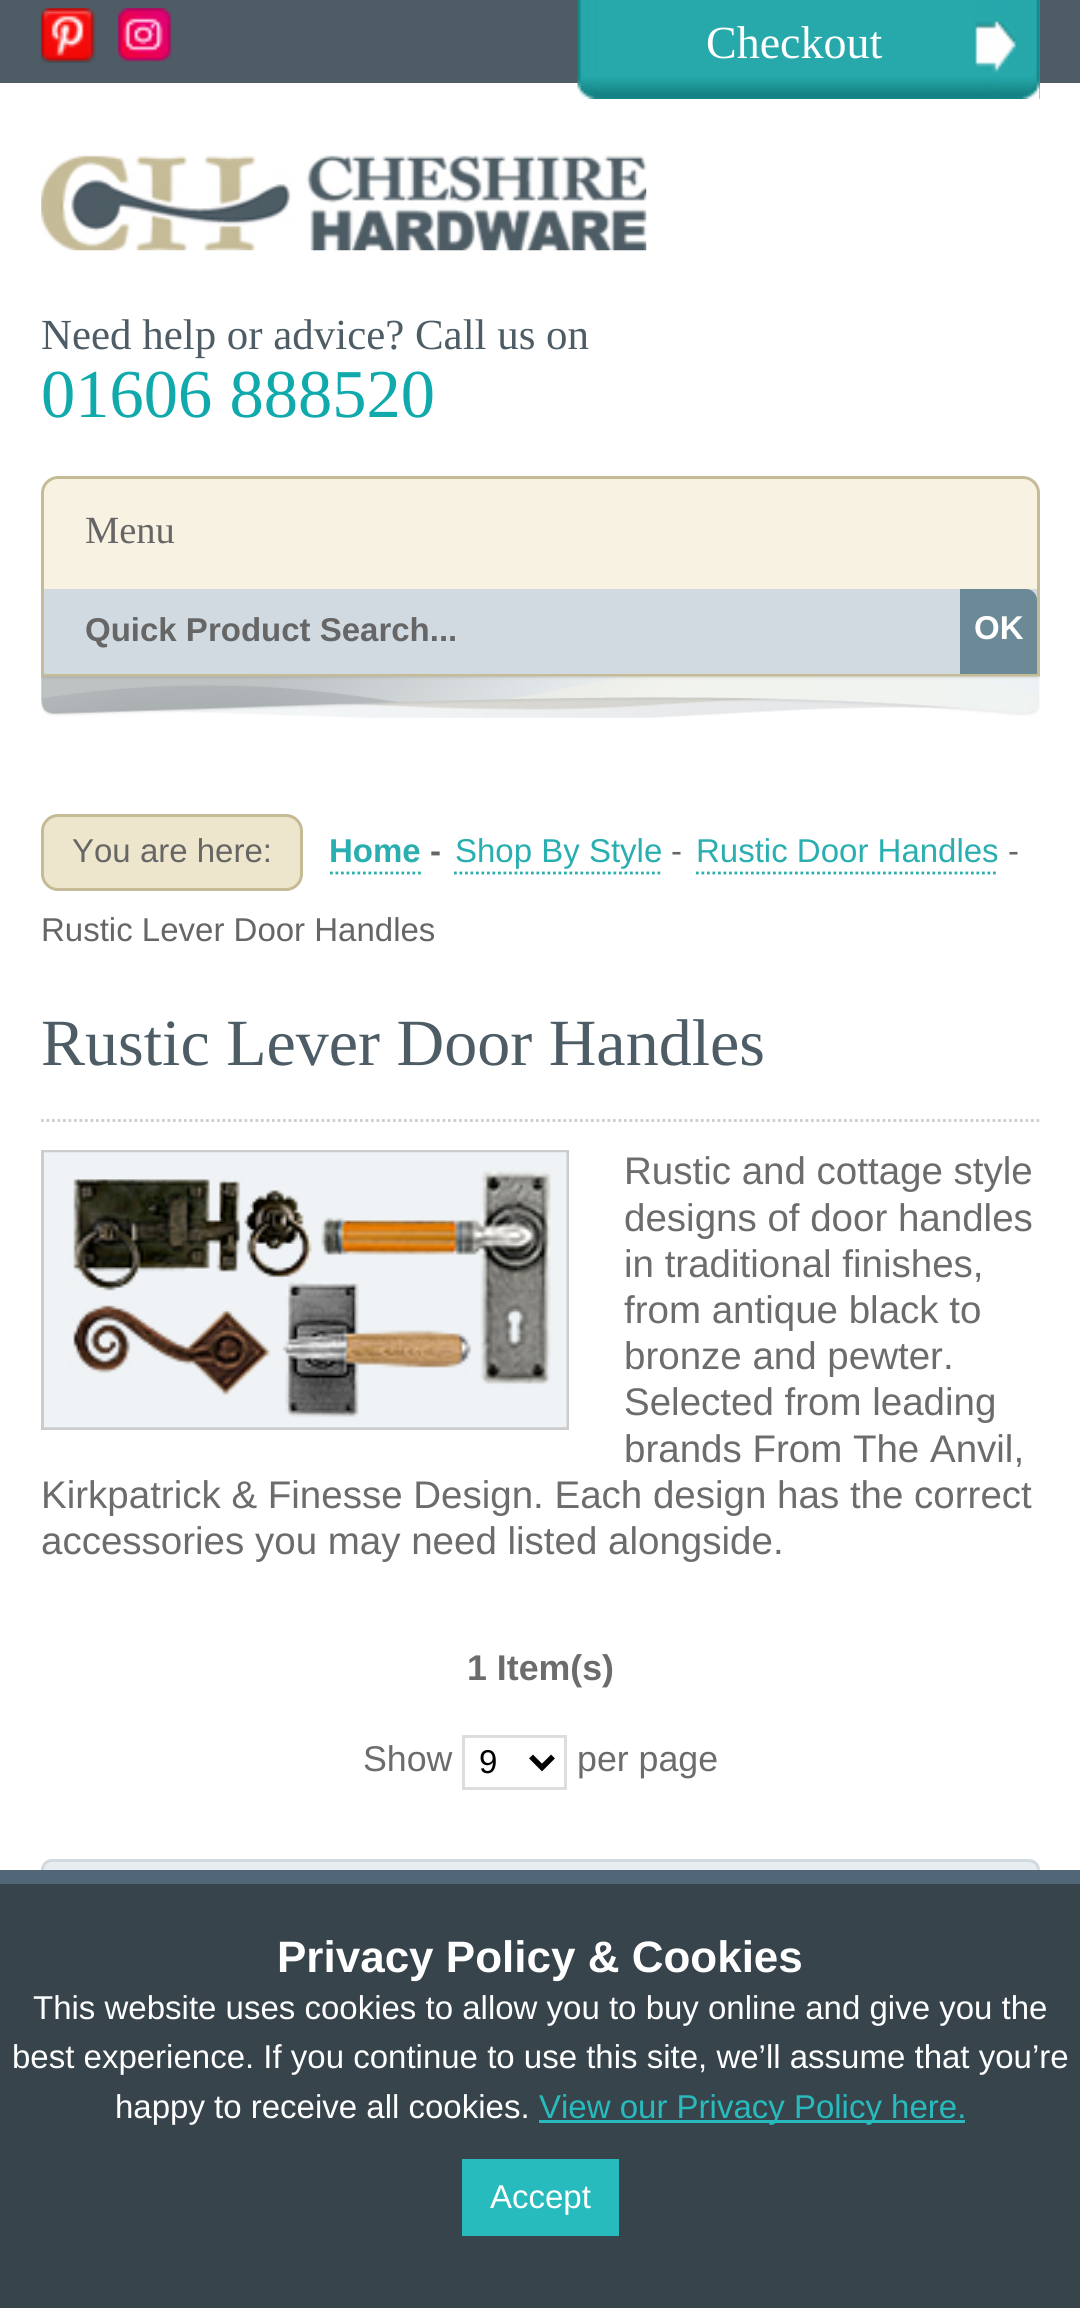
#include <cairo.h>
#include <math.h>
#include <stddef.h>

static cairo_t *c;
static void C(unsigned color){cairo_set_source_rgb(c, (color >> 16) / 255.0, (color >> 8 & 255) / 255.0, (color & 255) / 255.0);}
static void F(const char *family, double size, int italic, int bold){cairo_select_font_face(c, family, italic ? CAIRO_FONT_SLANT_ITALIC : CAIRO_FONT_SLANT_NORMAL,bold ? CAIRO_FONT_WEIGHT_BOLD : CAIRO_FONT_WEIGHT_NORMAL);cairo_set_font_size(c, size);}
static void T(double x, double y, const char *s){cairo_move_to(c, x, y);cairo_show_text(c, s);}
static void R(double x, double y, double w, double h){cairo_rectangle(c, x, y, w, h);cairo_fill(c);}
static void Q(double x, double y, double w, double h, double r){cairo_new_sub_path(c);cairo_arc(c, x + w - r, y + h - r, r, 0, M_PI / 2);cairo_arc(c, x + r, y + h - r, r, M_PI / 2, M_PI);cairo_arc(c, x + r, y + r, r, M_PI, 1.5 * M_PI);cairo_arc(c, x + w - r, y + r, r, 1.5 * M_PI, 2 * M_PI);cairo_close_path(c);}
static void I(const char *path, double x, double y, double w, double h){cairo_surface_t *image = cairo_image_surface_create_from_png(path);cairo_save(c);cairo_set_source_surface(c, image, x, y);cairo_rectangle(c, x, y, w, h);cairo_fill(c);cairo_restore(c);cairo_surface_destroy(image);}
int main(void) {
cairo_surface_t *surface = cairo_image_surface_create(CAIRO_FORMAT_RGB24, 1080, 2308);
c = cairo_create(surface);
cairo_font_options_t *options = cairo_font_options_create();
cairo_font_options_set_hint_metrics(options, CAIRO_HINT_METRICS_OFF);
cairo_font_options_set_hint_style(options, CAIRO_HINT_STYLE_NONE);
cairo_set_font_options(c, options);
cairo_set_miter_limit(c, 4);
C(0xffffff);
cairo_paint(c);
C(0x4e5c65);
R(0,0,1080,83);
I("1.png",41,8,55,55);
I("2.png",118,8,54,54);
C(0x25a8aa);
R(1039,0,1,99);
I("3.png",577,0,463,99);
F("Liberation Serif",46,0,0);
C(0xffffff);
T(706,58,"Checkout");
I("4.png",41,155,606,96);
F("Liberation Serif",42.9,0,0);
C(0x4d5c65);
T(41,349,"Need help or advice? Call us on");
F("Liberation Serif",68.5,0,0);
C(0x10a9ac);
T(41,417,"01606 888520");
C(0xf8f2e2);
cairo_new_path(c);
cairo_move_to(c,58,477.5);
cairo_line_to(c,1023,477.5);
cairo_curve_to(c,1031.5,477.5,1038.5,484.5,1038.5,493);
cairo_line_to(c,1038.5,675.5);
cairo_line_to(c,42.5,675.5);
cairo_line_to(c,42.5,493);
cairo_curve_to(c,42.5,484.5,49.5,477.5,58,477.5);
cairo_close_path(c);
cairo_fill_preserve(c);
C(0xc5bb97);
cairo_set_line_width(c,3);
cairo_stroke(c);
F("Liberation Serif",38.5,0,0);
C(0x666666);
T(85,543,"Menu");
C(0xd1dae0);
R(44,589,993,85);
F("Liberation Sans",33,0,1);
C(0x666666);
T(85,641,"Quick Product Search...");
C(0x6c8997);
cairo_new_path(c);
cairo_move_to(c,960,589);
cairo_line_to(c,1026,589);
cairo_curve_to(c,1032,589,1037,594,1037,600);
cairo_line_to(c,1037,674);
cairo_line_to(c,960,674);
cairo_close_path(c);
cairo_fill(c);
C(0xffffff);
T(974,639,"OK");
I("5.png",41,676,999,42);
C(0xeee6cc);
Q(42.5,815.5,259,74,15.5);
cairo_fill_preserve(c);
C(0xc5bb97);
cairo_stroke(c);
F("Liberation Sans",33,0,0);
C(0x666666);
T(72,862,"You are here:");
F("Liberation Sans",33,0,1);
C(0x2aaeb0);
T(329,862,"Home");
cairo_new_path(c);
cairo_move_to(c,330,873);
cairo_line_to(c,421,873);
cairo_set_line_width(c,2.8);
cairo_set_dash(c,(double[]){2.75,2.75},2,0);
cairo_stroke(c);
C(0x666666);
T(430,862,"-");
F("Liberation Sans",33,0,0);
C(0x2aaeb0);
T(455,862,"Shop By Style");
cairo_new_path(c);
cairo_move_to(c,454,873);
cairo_line_to(c,663,873);
cairo_stroke(c);
C(0x666666);
T(671,862,"-");
C(0x2aaeb0);
T(696,862,"Rustic Door Handles");
cairo_new_path(c);
cairo_move_to(c,696,873);
cairo_line_to(c,998,873);
cairo_stroke(c);
C(0x666666);
T(1008,862,"-");
T(41,941,"Rustic Lever Door Handles");
cairo_new_path(c);
cairo_move_to(c,41,1120.5);
cairo_line_to(c,1039.5,1120.5);
C(0xcccccc);
cairo_stroke(c);
F("Liberation Serif",66,0,0);
C(0x4d5c65);
T(41,1065,"Rustic Lever Door Handles");
cairo_rectangle(c,42.5,1151.5,525,277);
C(0xcccccc);
cairo_set_line_width(c,3);
cairo_set_dash(c,NULL,0,0);
cairo_stroke(c);
I("6.png",44,1152,523,276);
F("Liberation Sans",38.5,0,0);
C(0x6c6c6c);
T(624,1184,"Rustic and cottage style");
T(624,1231,"designs of door handles");
T(624,1277,"in traditional finishes,");
T(624,1323,"from antique black to");
T(624,1369,"bronze and pewter.");
T(624,1415,"Selected from leading");
T(624,1462,"brands From The Anvil,");
T(41,1508,"Kirkpatrick & Finesse Design. Each design has the correct");
T(41,1554,"accessories you may need listed alongside.");
F("Liberation Sans",35.75,0,1);
T(467,1680,"1 Item(s)");
F("Liberation Sans",35.75,0,0);
T(363,1771,"Show");
cairo_rectangle(c,463.5,1736.5,102,52);
C(0xdddddd);
cairo_stroke(c);
cairo_new_path(c);
cairo_move_to(c,531,1756.5);
cairo_line_to(c,542,1767.5);
cairo_line_to(c,553,1756.5);
C(0x000000);
cairo_set_line_width(c,5.5);
cairo_stroke(c);
F("Liberation Sans",33,0,0);
T(479,1773,"9");
F("Liberation Sans",35.75,0,0);
C(0x6c6c6c);
T(577,1771,"per page");
C(0xe8edf0);
Q(41,1859,999,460,11);
cairo_fill(c);
C(0xd1dae0);
cairo_set_fill_rule(c,CAIRO_FILL_RULE_EVEN_ODD);
cairo_new_path(c);
cairo_move_to(c,52,1859);
cairo_line_to(c,1028,1859);
cairo_curve_to(c,1035,1859,1040,1864,1040,1870);
cairo_line_to(c,1040,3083);
cairo_curve_to(c,1040,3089,1035,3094,1028,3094);
cairo_line_to(c,52,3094);
cairo_curve_to(c,46,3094,41,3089,41,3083);
cairo_line_to(c,41,1870);
cairo_curve_to(c,41,1864,46,1859,52,1859);
cairo_close_path(c);
cairo_move_to(c,52,1862);
cairo_line_to(c,1028,1862);
cairo_curve_to(c,1033,1862,1037,1865,1037,1870);
cairo_line_to(c,1037,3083);
cairo_curve_to(c,1037,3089,1033,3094,1028,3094);
cairo_line_to(c,52,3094);
cairo_curve_to(c,48,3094,44,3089,44,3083);
cairo_line_to(c,44,1870);
cairo_curve_to(c,44,1865,48,1862,52,1862);
cairo_close_path(c);
cairo_fill(c);
C(0x38444c);
R(0,1884,1080,424);
C(0x516778);
R(0,1870,1080,14);
F("Liberation Sans",44,0,1);
C(0xffffff);
T(277,1972,"Privacy Policy & Cookies");
F("Liberation Sans",33,0,0);
T(33,2019,"This website uses cookies to allow you to buy online and give you the");
T(12,2068,"best experience. If you continue to use this site, we’ll assume that you’re");
T(115,2118,"happy to receive all cookies.");
C(0x28bbbd);
R(539,2120,426,3);
T(539,2118,"View our Privacy Policy here.");
R(462,2159,157,77);
C(0xffffff);
T(490,2208,"Accept");
cairo_surface_write_to_png(surface, "o.png");
cairo_font_options_destroy(options);
cairo_destroy(c);
cairo_surface_destroy(surface);
return 0;
}
